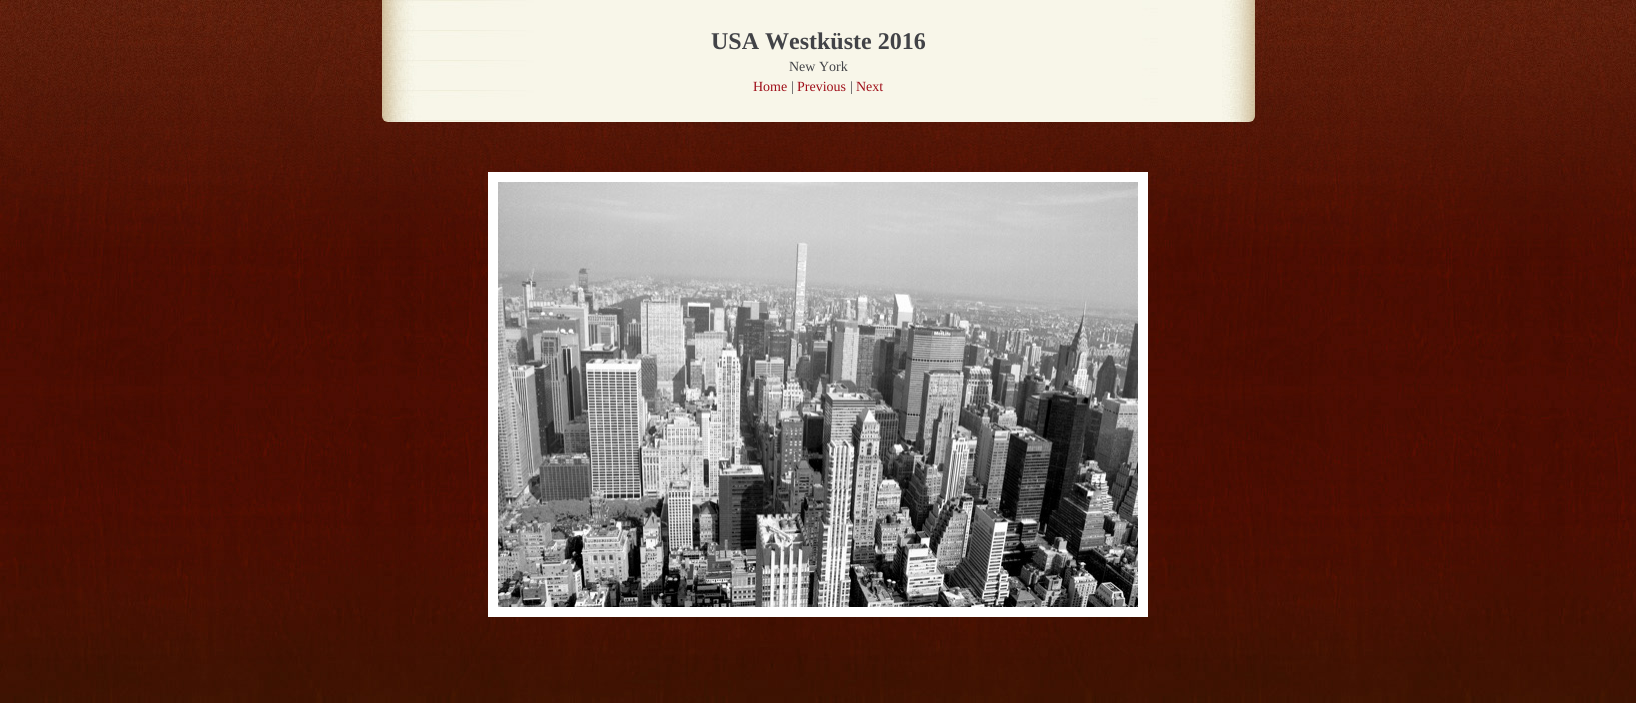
#include <cairo.h>
#include <math.h>
#include <stddef.h>

static cairo_t *c;
static void C(unsigned color){cairo_set_source_rgb(c, (color >> 16) / 255.0, (color >> 8 & 255) / 255.0, (color & 255) / 255.0);}
static void F(const char *family, double size, int italic, int bold){cairo_select_font_face(c, family, italic ? CAIRO_FONT_SLANT_ITALIC : CAIRO_FONT_SLANT_NORMAL,bold ? CAIRO_FONT_WEIGHT_BOLD : CAIRO_FONT_WEIGHT_NORMAL);cairo_set_font_size(c, size);}
static void T(double x, double y, const char *s){cairo_move_to(c, x, y);cairo_show_text(c, s);}
static void I(const char *path, double x, double y, double w, double h){cairo_surface_t *image = cairo_image_surface_create_from_png(path);cairo_save(c);cairo_set_source_surface(c, image, x, y);cairo_rectangle(c, x, y, w, h);cairo_fill(c);cairo_restore(c);cairo_surface_destroy(image);}
int main(void) {
cairo_surface_t *surface = cairo_image_surface_create(CAIRO_FORMAT_RGB24, 1636, 703);
c = cairo_create(surface);
cairo_font_options_t *options = cairo_font_options_create();
cairo_font_options_set_hint_metrics(options, CAIRO_HINT_METRICS_OFF);
cairo_font_options_set_hint_style(options, CAIRO_HINT_STYLE_NONE);
cairo_set_font_options(c, options);
cairo_set_miter_limit(c, 4);
C(0xffffff);
cairo_paint(c);
I("1.png",0,0,1636,703);
I("2.png",382,0,873,122);
F("Liberation Serif",24,0,1);
C(0x424347);
T(711,49,"USA Westküste 2016");
F("Liberation Serif",14,0,0);
T(789,71,"New York");
C(0x9f0e19);
T(753,91,"Home");
C(0x424347);
T(791,91,"|");
C(0x9f0e19);
T(797,91,"Previous");
C(0x424347);
T(850,91,"|");
C(0x9f0e19);
T(856,91,"Next");
cairo_new_path(c);
cairo_move_to(c,493,177);
cairo_line_to(c,1143,177);
cairo_line_to(c,1143,612);
cairo_line_to(c,493,612);
cairo_close_path(c);
C(0xffffff);
cairo_set_line_width(c,10);
cairo_stroke(c);
I("3.png",498,182,640,425);
cairo_surface_write_to_png(surface, "o.png");
cairo_font_options_destroy(options);
cairo_destroy(c);
cairo_surface_destroy(surface);
return 0;
}
